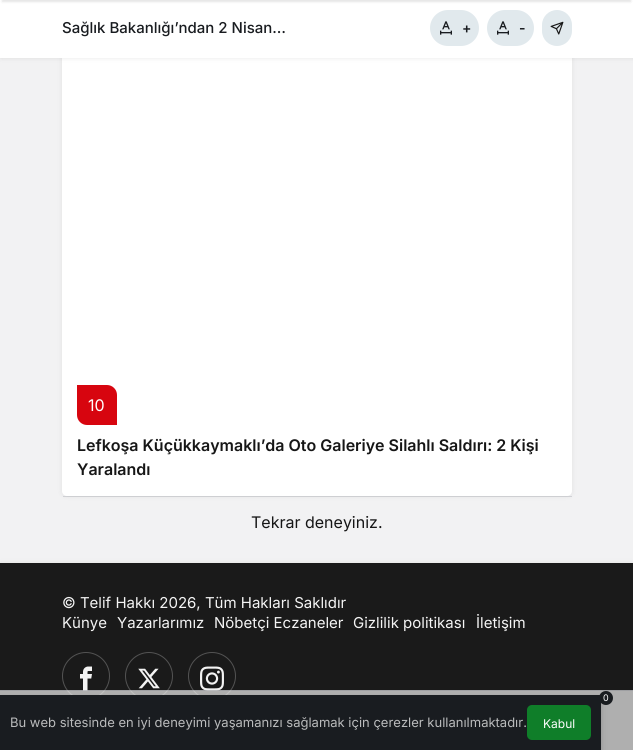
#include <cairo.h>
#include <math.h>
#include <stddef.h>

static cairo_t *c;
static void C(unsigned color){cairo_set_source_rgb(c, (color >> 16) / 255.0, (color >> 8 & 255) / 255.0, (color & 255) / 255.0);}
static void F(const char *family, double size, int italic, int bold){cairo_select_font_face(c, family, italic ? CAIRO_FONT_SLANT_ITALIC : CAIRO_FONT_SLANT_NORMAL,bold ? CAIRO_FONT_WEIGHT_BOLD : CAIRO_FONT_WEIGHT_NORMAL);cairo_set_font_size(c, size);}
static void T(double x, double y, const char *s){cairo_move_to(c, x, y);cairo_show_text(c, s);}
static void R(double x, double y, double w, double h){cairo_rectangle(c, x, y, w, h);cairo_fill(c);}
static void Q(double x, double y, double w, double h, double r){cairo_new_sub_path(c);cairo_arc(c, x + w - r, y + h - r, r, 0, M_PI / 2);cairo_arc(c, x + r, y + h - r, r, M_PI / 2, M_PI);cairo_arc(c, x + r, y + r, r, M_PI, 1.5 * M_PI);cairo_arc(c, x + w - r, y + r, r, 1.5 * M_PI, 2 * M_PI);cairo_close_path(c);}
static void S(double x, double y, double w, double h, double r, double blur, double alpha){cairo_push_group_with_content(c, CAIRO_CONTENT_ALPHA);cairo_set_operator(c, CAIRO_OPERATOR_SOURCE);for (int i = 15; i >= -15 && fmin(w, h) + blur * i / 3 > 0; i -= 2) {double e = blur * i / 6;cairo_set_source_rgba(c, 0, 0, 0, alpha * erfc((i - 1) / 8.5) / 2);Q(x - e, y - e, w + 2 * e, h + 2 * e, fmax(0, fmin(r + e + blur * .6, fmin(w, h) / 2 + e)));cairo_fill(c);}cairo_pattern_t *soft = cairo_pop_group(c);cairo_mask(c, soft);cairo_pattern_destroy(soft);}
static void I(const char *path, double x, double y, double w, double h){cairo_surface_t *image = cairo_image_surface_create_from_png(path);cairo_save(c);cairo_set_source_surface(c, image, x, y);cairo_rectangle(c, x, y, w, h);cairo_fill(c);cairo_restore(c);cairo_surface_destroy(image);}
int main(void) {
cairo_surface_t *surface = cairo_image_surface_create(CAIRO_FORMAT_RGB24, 633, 750);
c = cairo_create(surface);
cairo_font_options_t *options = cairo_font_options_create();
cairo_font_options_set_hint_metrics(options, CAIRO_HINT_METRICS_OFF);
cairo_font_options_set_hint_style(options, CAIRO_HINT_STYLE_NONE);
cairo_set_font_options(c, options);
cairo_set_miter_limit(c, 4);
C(0xf2f2f3);
cairo_paint(c);
C(0x32353d);
S(62,-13,510,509,5,2.5,.1);
C(0xffffff);
Q(62,-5,510,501,5);
cairo_fill(c);
C(0x000000);
S(1,0,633,58,0,2.5,.1);
C(0xffffff);
R(0,0,633,58);
C(0x000000);
S(2,-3,629,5,0,1,.1);
F("Inter Medium",15,0,0);
C(0x191c20);
T(62,33,"Sağlık Bakanlığı’ndan 2 Nisan…");
C(0xe1e9ed);
Q(430,10,49,36,18);
cairo_fill(c);
I("1.png",440,21,12,14);
F("Inter SemiBold",14,0,0);
C(0x191c20);
T(462,33,"+");
C(0xe1e9ed);
Q(487,10,47,36,18);
cairo_fill(c);
I("1.png",497,21,12,14);
C(0x191c20);
T(519,33,"-");
C(0xe1e9ed);
Q(542,10,30,36,15);
cairo_fill(c);
I("2.png",550,21,14,14);
cairo_set_source_rgba(c,0.357,0.38,0.431,0.2);
R(63,496,509,1);
C(0xd7050f);
cairo_new_path(c);
cairo_move_to(c,77,385);
cairo_line_to(c,107,385);
cairo_curve_to(c,112.5,385,117,389.5,117,395);
cairo_line_to(c,117,425);
cairo_line_to(c,87,425);
cairo_curve_to(c,81.5,425,77,420.5,77,415);
cairo_close_path(c);
cairo_fill(c);
F("Inter",16,0,0);
C(0xffffff);
T(88,411,"10");
F("Inter SemiBold",16,0,0);
C(0x161616);
T(77,451,"Lefkoşa Küçükkaymaklı’da Oto Galeriye Silahlı Saldırı: 2 Kişi");
T(77,475,"Yaralandı");
F("Inter",16,0,0);
T(251,528,"Tekrar deneyiniz.");
C(0x32353d);
S(0,563,633,187,0,2.5,.1);
C(0x1a1a1a);
R(0,563,633,187);
F("Inter",15,0,0);
C(0xf4f4f4);
T(62,608,"© Telif Hakkı 2026, Tüm Hakları Saklıdır");
T(62,628,"Künye");
T(117,628,"Yazarlarımız");
T(214,628,"Nöbetçi Eczaneler");
T(353,628,"Gizlilik politikası");
T(476,628,"İletişim");
cairo_new_path(c);
cairo_arc(c,86,676,23.5,0,2 * M_PI);
C(0x535353);
cairo_set_line_width(c,1);
cairo_stroke(c);
I("3.png",80,666,12,25);
cairo_arc(c,149,676,23.5,0,2 * M_PI);
cairo_stroke(c);
I("4.png",138,668,22,21);
cairo_arc(c,212,676,23.5,0,2 * M_PI);
cairo_stroke(c);
I("5.png",200,666,24,25);
cairo_set_source_rgba(c,1,1,1,0.65);
R(0,690,633,60);
cairo_set_source_rgba(c,0.357,0.38,0.431,0.2);
R(0,690,633,1);
C(0x191c20);
cairo_arc(c,606,698,7,0,2 * M_PI);
cairo_fill(c);
C(0x000000);
S(0,697,601,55,0,2,.08);
S(0,699,601,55,0,4,.12);
C(0x191c20);
R(0,695,601,55);
F("Inter",13,0,0);
C(0xbabbbc);
T(10,727,"Bu web sitesinde en iyi deneyimi yaşamanızı sağlamak için çerezler kullanılmaktadır.");
C(0x0f7e29);
Q(527,705,64,35,5);
cairo_fill(c);
F("Inter",12,0,0);
C(0xffffff);
T(543,728,"Kabul");
F("Inter",9,0,0);
T(603,701,"0");
cairo_surface_write_to_png(surface, "o.png");
cairo_font_options_destroy(options);
cairo_destroy(c);
cairo_surface_destroy(surface);
return 0;
}
